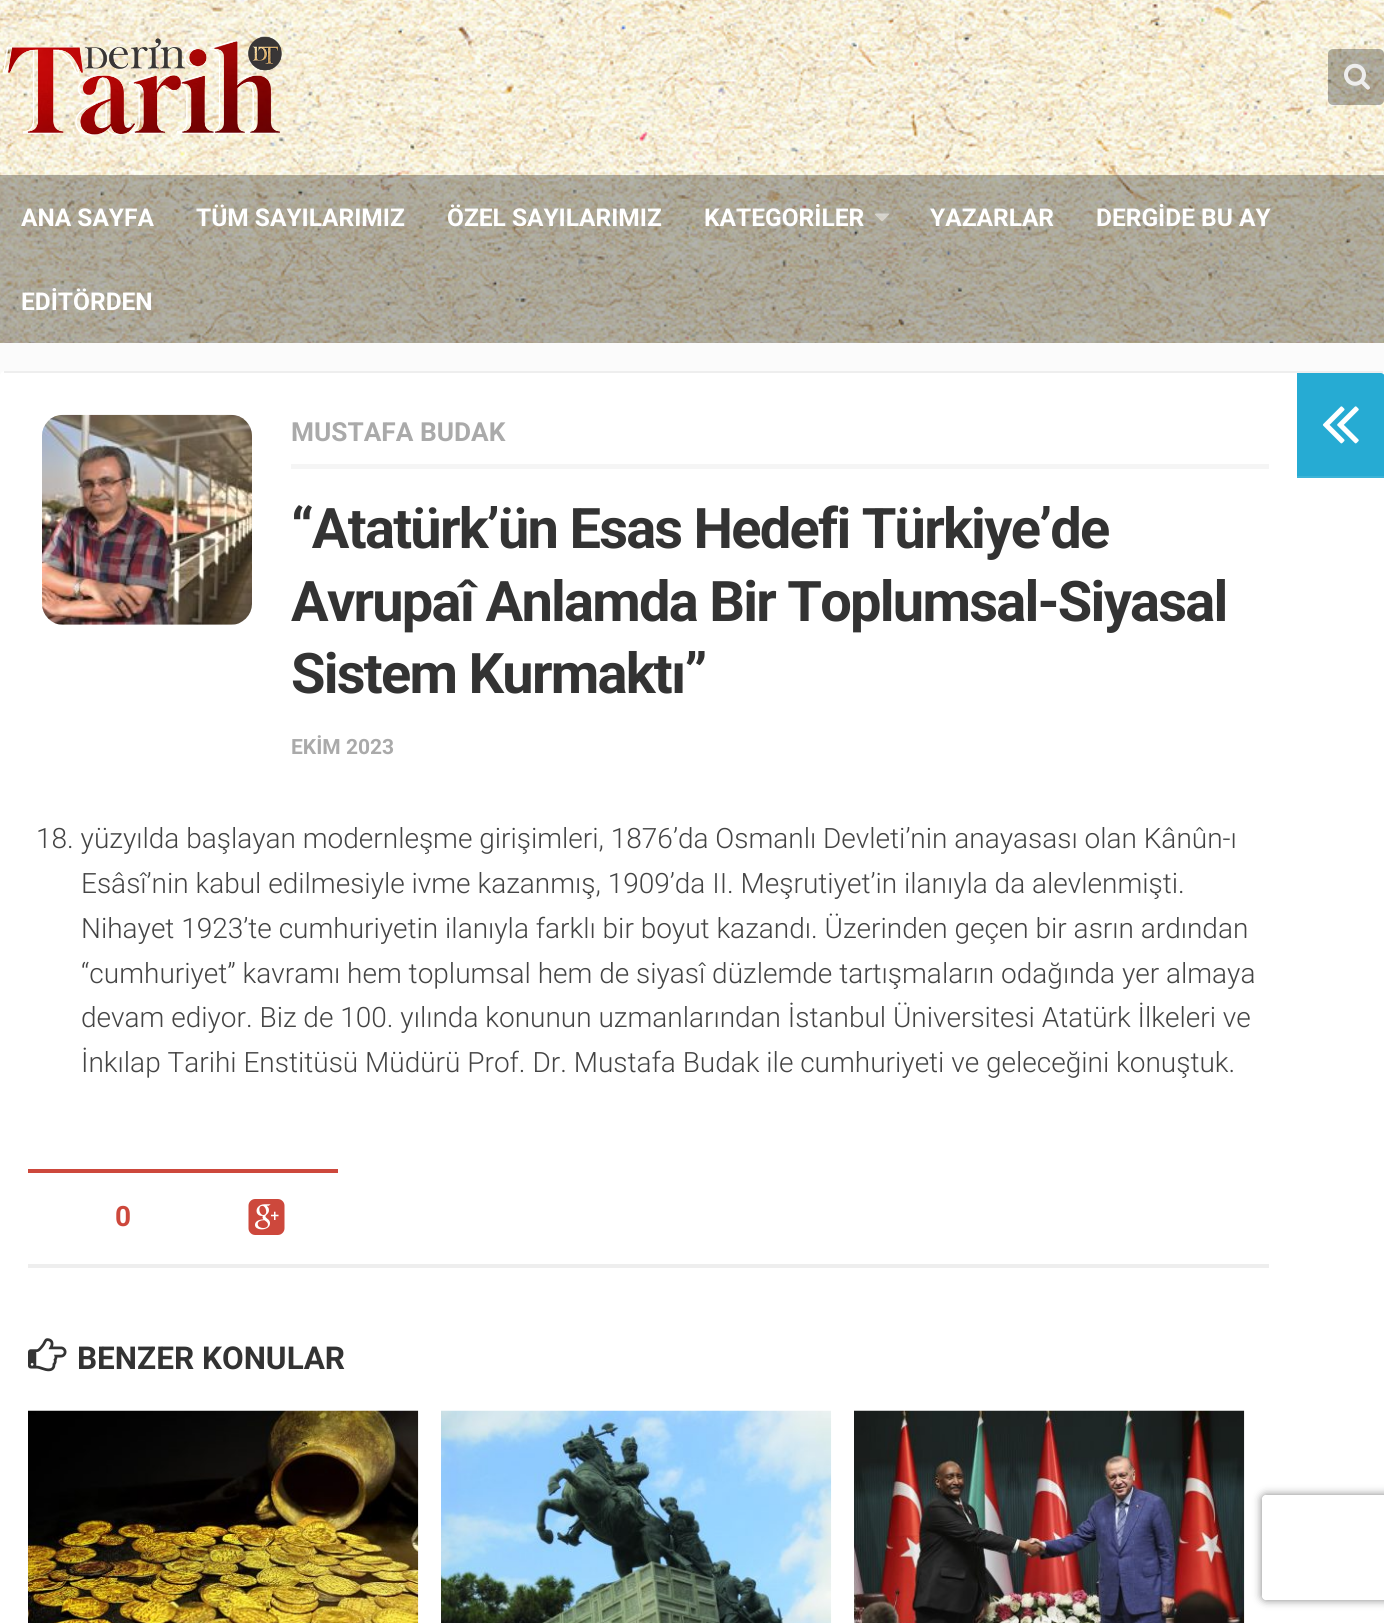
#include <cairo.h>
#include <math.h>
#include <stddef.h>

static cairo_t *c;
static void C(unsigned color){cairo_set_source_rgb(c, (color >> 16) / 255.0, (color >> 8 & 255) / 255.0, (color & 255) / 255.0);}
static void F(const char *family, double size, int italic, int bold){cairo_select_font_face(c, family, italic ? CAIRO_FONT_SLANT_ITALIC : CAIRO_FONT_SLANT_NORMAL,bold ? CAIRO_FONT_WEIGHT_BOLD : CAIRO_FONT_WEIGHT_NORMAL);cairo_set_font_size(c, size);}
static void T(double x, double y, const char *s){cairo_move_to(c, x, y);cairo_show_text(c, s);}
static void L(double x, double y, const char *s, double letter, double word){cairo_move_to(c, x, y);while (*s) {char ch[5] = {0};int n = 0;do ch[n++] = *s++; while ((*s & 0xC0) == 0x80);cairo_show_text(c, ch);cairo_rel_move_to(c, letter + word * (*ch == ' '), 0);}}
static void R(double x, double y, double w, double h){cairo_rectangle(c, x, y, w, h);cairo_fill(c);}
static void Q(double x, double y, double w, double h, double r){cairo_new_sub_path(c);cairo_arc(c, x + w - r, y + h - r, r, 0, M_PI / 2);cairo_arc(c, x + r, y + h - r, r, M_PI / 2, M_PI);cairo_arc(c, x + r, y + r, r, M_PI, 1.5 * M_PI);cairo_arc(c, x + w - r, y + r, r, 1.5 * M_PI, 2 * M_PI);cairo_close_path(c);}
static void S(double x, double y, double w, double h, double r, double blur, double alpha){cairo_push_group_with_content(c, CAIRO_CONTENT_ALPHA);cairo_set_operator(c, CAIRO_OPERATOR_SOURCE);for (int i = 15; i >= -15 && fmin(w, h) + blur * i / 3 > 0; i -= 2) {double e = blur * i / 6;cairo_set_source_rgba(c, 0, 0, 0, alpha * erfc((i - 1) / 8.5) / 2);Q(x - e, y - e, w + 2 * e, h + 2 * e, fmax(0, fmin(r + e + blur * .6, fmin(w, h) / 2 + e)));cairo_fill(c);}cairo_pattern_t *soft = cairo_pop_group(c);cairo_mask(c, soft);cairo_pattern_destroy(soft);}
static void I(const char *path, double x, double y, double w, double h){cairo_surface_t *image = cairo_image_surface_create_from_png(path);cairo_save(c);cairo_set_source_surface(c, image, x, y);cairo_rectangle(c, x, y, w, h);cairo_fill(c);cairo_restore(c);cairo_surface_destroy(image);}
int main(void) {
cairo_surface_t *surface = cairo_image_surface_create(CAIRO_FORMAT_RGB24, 1384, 1623);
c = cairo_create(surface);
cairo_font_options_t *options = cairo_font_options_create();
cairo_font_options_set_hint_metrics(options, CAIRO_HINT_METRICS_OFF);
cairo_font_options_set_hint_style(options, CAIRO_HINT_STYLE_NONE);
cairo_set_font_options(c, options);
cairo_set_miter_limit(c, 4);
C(0xfbfbfb);
cairo_paint(c);
I("1.png",0,0,1384,343);
I("2.png",2,36,280,100);
cairo_set_source_rgba(c,0,0,0,0.3);
Q(1328,49,56,56,5);
cairo_fill(c);
I("3.png",1344,63,26,27);
R(0,175,1384,168);
F("Roboto",24.5,0,1);
C(0xffffff);
T(21,226,"ANA SAYFA");
T(196,226,"TÜM SAYILARIMIZ");
T(447,226,"ÖZEL SAYILARIMIZ");
T(704,226,"KATEGORİLER");
I("4.png",875,213,14,9);
T(930,226,"YAZARLAR");
T(1096,226,"DERGİDE BU AY");
T(21,310,"EDİTÖRDEN");
Q(0,371,1384,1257,5);
cairo_fill(c);
C(0xeeeeee);
R(4,371,1379,2);
C(0xf5f5f5);
R(291,464,978,5);
F("Roboto",26.25,0,1);
C(0xaaaaaa);
T(291,441,"MUSTAFA BUDAK");
C(0xeeeeee);
Q(42,415,210,210,21);
cairo_fill(c);
I("5.png",42,414,210,211);
F("Roboto",56,0,1);
C(0x333333);
L(291,548,"“Atatürk’ün Esas Hedefi Türkiye’de",-1.75,0);
L(291,621,"Avrupaî Anlamda Bir Toplumsal-Siyasal",-1.75,0);
L(291,693,"Sistem Kurmaktı”",-1.75,0);
F("Roboto",21,0,1);
C(0xaaaaaa);
T(291,754,"EKİM 2023");
F("Roboto Light",28,0,0);
C(0x444444);
T(36,848,"18. yüzyılda başlayan modernleşme girişimleri, 1876’da Osmanlı Devleti’nin anayasası olan Kânûn-ı");
T(81,893,"Esâsî’nin kabul edilmesiyle ivme kazanmış, 1909’da II. Meşrutiyet’in ilanıyla da alevlenmişti.");
T(81,938,"Nihayet 1923’te cumhuriyetin ilanıyla farklı bir boyut kazandı. Üzerinden geçen bir asrın ardından");
T(81,983,"“cumhuriyet” kavramı hem toplumsal hem de siyasî düzlemde tartışmaların odağında yer almaya");
T(81,1027,"devam ediyor. Biz de 100. yılında konunun uzmanlarından İstanbul Üniversitesi Atatürk İlkeleri ve");
T(81,1072,"İnkılap Tarihi Enstitüsü Müdürü Prof. Dr. Mustafa Budak ile cumhuriyeti ve geleceğini konuştuk.");
C(0xeeeeee);
R(28,1264,1241,4);
C(0xcd483c);
R(28,1169,310,4);
F("Roboto",28,0,1);
T(115,1226,"0");
I("6.png",248,1199,37,36);
I("7.png",28,1338,39,34);
F("Roboto",31.5,0,1);
C(0x333333);
T(77,1369,"BENZER KONULAR");
I("8.png",28,1410,391,213);
I("9.png",441,1410,391,213);
I("10.png",854,1410,391,213);
C(0x26abd3);
cairo_new_path(c);
cairo_move_to(c,1297,373);
cairo_line_to(c,1381,373);
cairo_curve_to(c,1382,373,1384,374,1384,375);
cairo_line_to(c,1384,478);
cairo_line_to(c,1297,478);
cairo_close_path(c);
cairo_fill(c);
C(0x3cb3d7);
R(1297,476,87,2);
I("11.png",1322,406,37,38);
cairo_save(c);
cairo_set_fill_rule(c,CAIRO_FILL_RULE_EVEN_ODD);
cairo_new_path(c);
cairo_move_to(c,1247,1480);
cairo_line_to(c,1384,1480);
cairo_line_to(c,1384,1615);
cairo_line_to(c,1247,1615);
cairo_close_path(c);
cairo_move_to(c,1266,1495);
cairo_line_to(c,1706,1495);
cairo_curve_to(c,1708,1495,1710,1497,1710,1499);
cairo_line_to(c,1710,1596);
cairo_curve_to(c,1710,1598,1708,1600,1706,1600);
cairo_line_to(c,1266,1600);
cairo_curve_to(c,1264,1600,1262,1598,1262,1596);
cairo_line_to(c,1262,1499);
cairo_curve_to(c,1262,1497,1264,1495,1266,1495);
cairo_close_path(c);
cairo_clip(c);
C(0x808080);
S(1262,1495,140,105,4,4.5,1);
cairo_restore(c);
cairo_surface_write_to_png(surface, "o.png");
cairo_font_options_destroy(options);
cairo_destroy(c);
cairo_surface_destroy(surface);
return 0;
}
